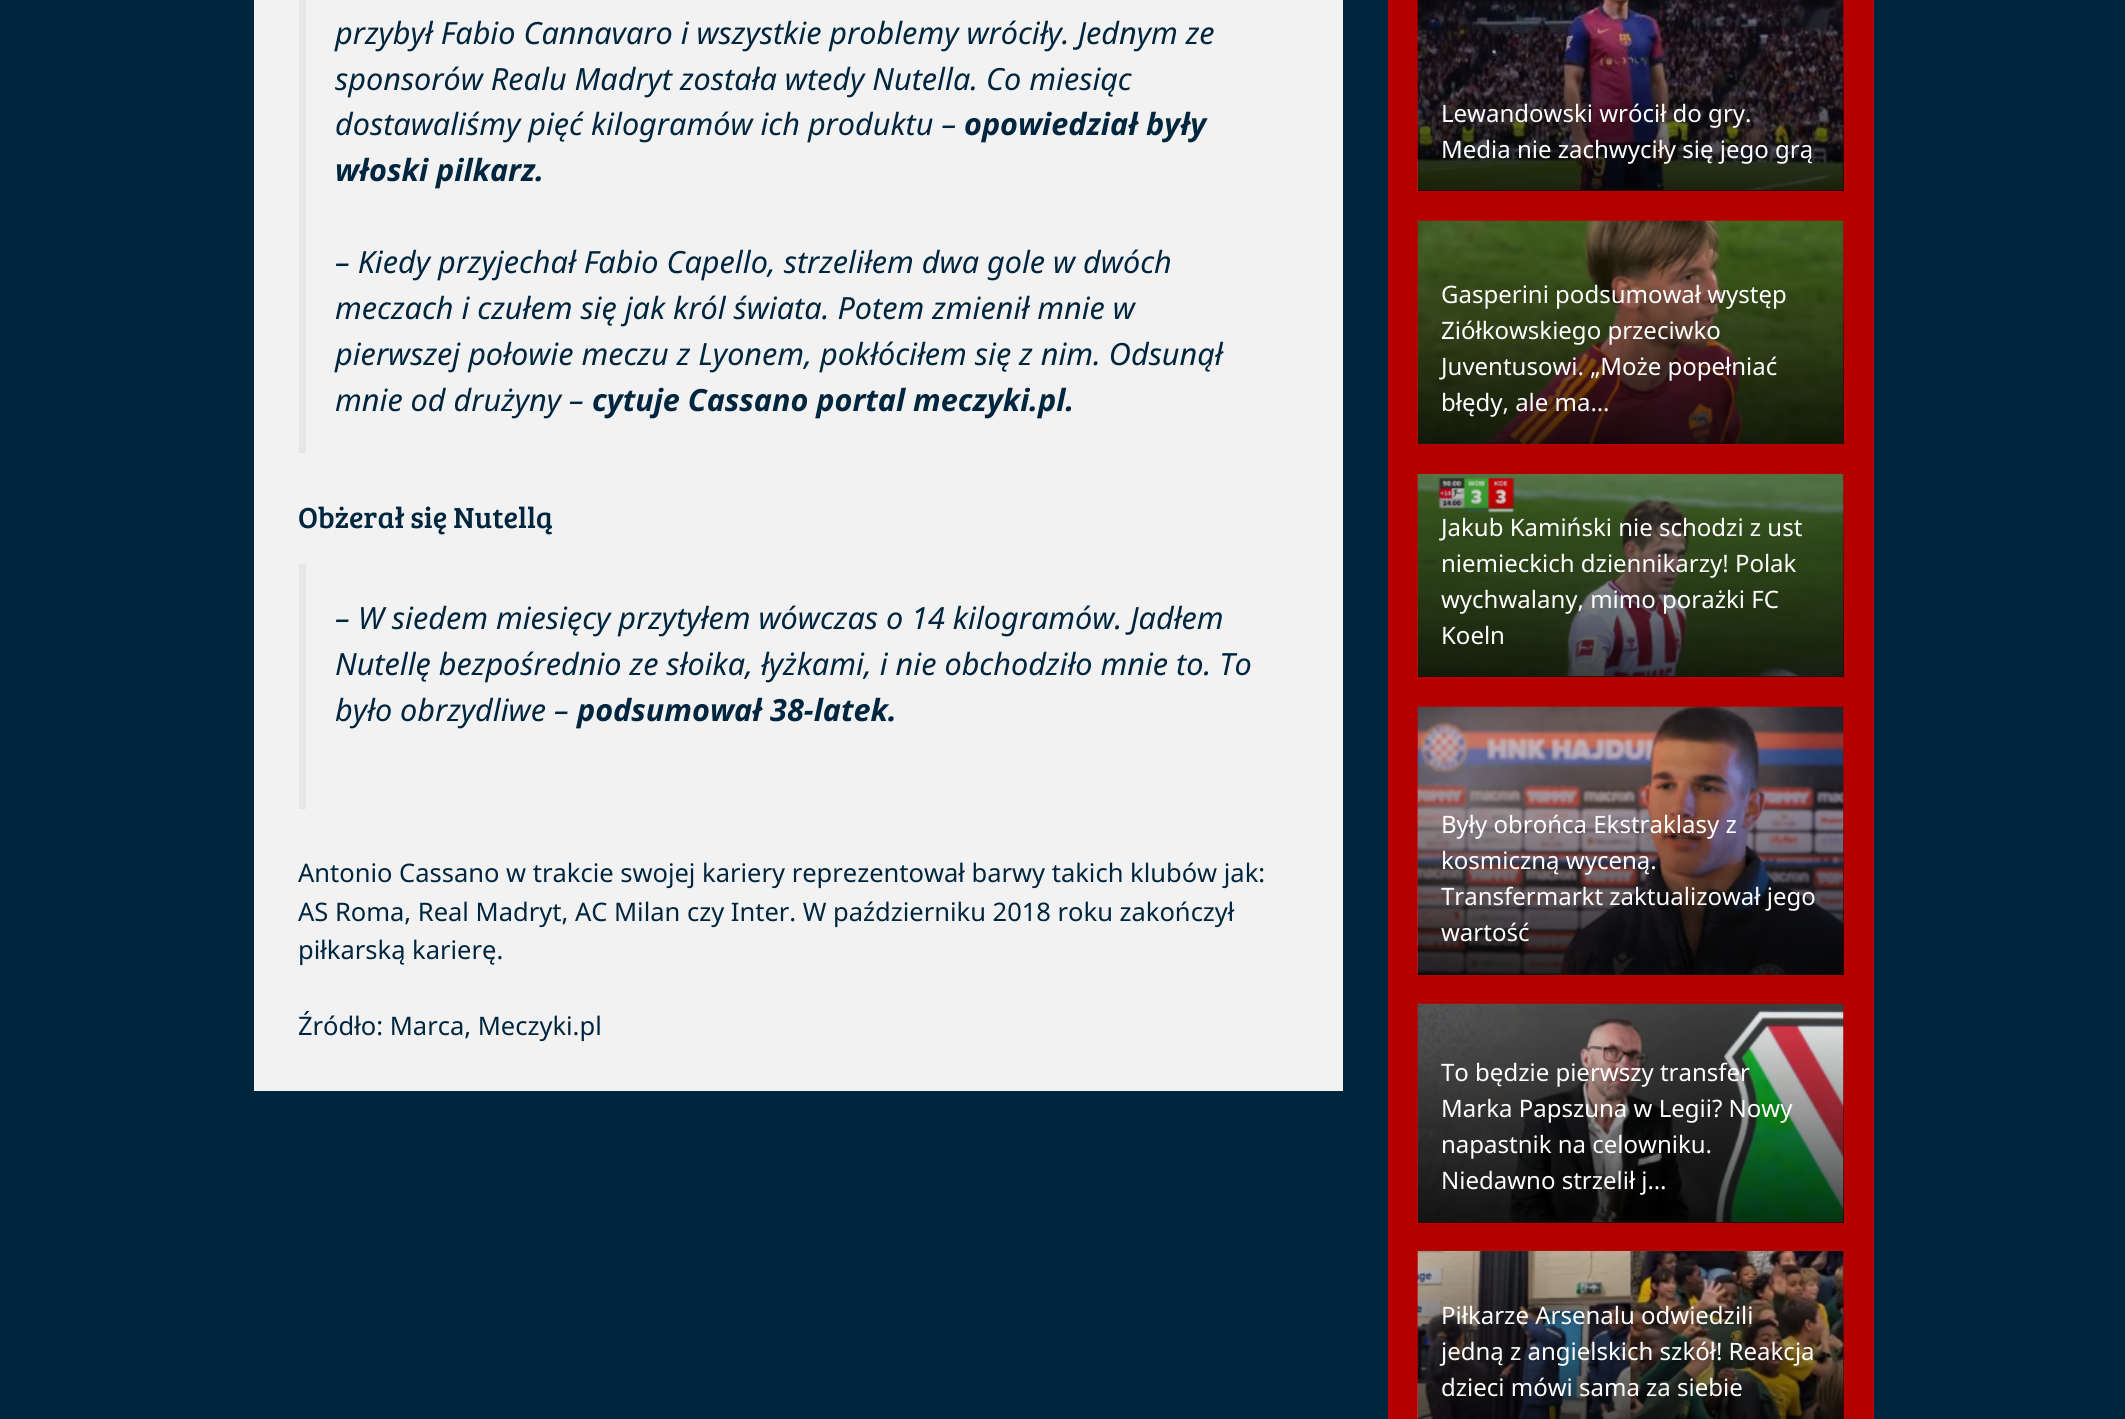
#include <cairo.h>
#include <math.h>
#include <stddef.h>

static cairo_t *c;
static void C(unsigned color){cairo_set_source_rgb(c, (color >> 16) / 255.0, (color >> 8 & 255) / 255.0, (color & 255) / 255.0);}
static void F(const char *family, double size, int italic, int bold){cairo_select_font_face(c, family, italic ? CAIRO_FONT_SLANT_ITALIC : CAIRO_FONT_SLANT_NORMAL,bold ? CAIRO_FONT_WEIGHT_BOLD : CAIRO_FONT_WEIGHT_NORMAL);cairo_set_font_size(c, size);}
static void T(double x, double y, const char *s){cairo_move_to(c, x, y);cairo_show_text(c, s);}
static void R(double x, double y, double w, double h){cairo_rectangle(c, x, y, w, h);cairo_fill(c);}
static void I(const char *path, double x, double y, double w, double h){cairo_surface_t *image = cairo_image_surface_create_from_png(path);cairo_save(c);cairo_set_source_surface(c, image, x, y);cairo_rectangle(c, x, y, w, h);cairo_fill(c);cairo_restore(c);cairo_surface_destroy(image);}
int main(void) {
cairo_surface_t *surface = cairo_image_surface_create(CAIRO_FORMAT_RGB24, 2125, 1419);
c = cairo_create(surface);
cairo_font_options_t *options = cairo_font_options_create();
cairo_font_options_set_hint_metrics(options, CAIRO_HINT_METRICS_OFF);
cairo_font_options_set_hint_style(options, CAIRO_HINT_STYLE_NONE);
cairo_set_font_options(c, options);
cairo_set_miter_limit(c, 4);
cairo_pattern_t *gradient;
C(0x00253e);
cairo_paint(c);
C(0xf2f2f2);
R(254,0,1089,1091);
C(0xe6e6e6);
R(299,0,7,453);
F("Noto Sans",30.6,1,0);
C(0x00253e);
T(335,44,"przybył Fabio Cannavaro i wszystkie problemy wróciły. Jednym ze");
T(335,90,"sponsorów Realu Madryt została wtedy Nutella. Co miesiąc");
T(335,135,"dostawaliśmy pięć kilogramów ich produktu –");
F("Noto Sans",30.6,1,1);
T(964,135,"opowiedział były");
T(335,181,"włoski pilkarz.");
F("Noto Sans",30.6,1,0);
T(335,273,"– Kiedy przyjechał Fabio Capello, strzeliłem dwa gole w dwóch");
T(335,319,"meczach i czułem się jak król świata. Potem zmienił mnie w");
T(335,365,"pierwszej połowie meczu z Lyonem, pokłóciłem się z nim. Odsunął");
T(335,411,"mnie od drużyny –");
F("Noto Sans",30.6,1,1);
T(592,411,"cytuje Cassano portal meczyki.pl.");
F("Bree Serif",30,0,0);
T(298,528,"Obżerał się Nutellą");
C(0xe6e6e6);
R(299,564,7,245);
F("Noto Sans",30.6,1,0);
C(0x00253e);
T(335,629,"– W siedem miesięcy przytyłem wówczas o 14 kilogramów. Jadłem");
T(335,675,"Nutellę bezpośrednio ze słoika, łyżkami, i nie obchodziło mnie to. To");
T(335,721,"było obrzydliwe –");
F("Noto Sans",30.6,1,1);
T(577,721,"podsumował 38-latek.");
F("Noto Sans",25.5,0,0);
T(298,882,"Antonio Cassano w trakcie swojej kariery reprezentował barwy takich klubów jak:");
T(298,921,"AS Roma, Real Madryt, AC Milan czy Inter. W październiku 2018 roku zakończył");
T(298,959,"piłkarską karierę.");
T(298,1035,"Źródło: Marca, Meczyki.pl");
C(0xb40000);
R(1388,0,486,1419);
I("1.png",1417,0,427,191);
gradient = cairo_pattern_create_linear(1631,-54,1631,191);
cairo_pattern_add_color_stop_rgba(gradient,0,0,0,0,0);
cairo_pattern_add_color_stop_rgba(gradient,.25,0,0,0,0);
cairo_pattern_add_color_stop_rgba(gradient,1,0,0,0,.75);
cairo_set_source(c,gradient);
cairo_pattern_destroy(gradient);
R(1418,13,426,178);
F("Noto Sans",24,0,0);
C(0xffffff);
T(1441,122,"Lewandowski wrócił do gry.");
T(1441,158,"Media nie zachwyciły się jego grą");
I("2.png",1417,220,427,224);
gradient = cairo_pattern_create_linear(1631,127,1631,444);
cairo_pattern_add_color_stop_rgba(gradient,0,0,0,0,0);
cairo_pattern_add_color_stop_rgba(gradient,.25,0,0,0,0);
cairo_pattern_add_color_stop_rgba(gradient,1,0,0,0,.75);
cairo_set_source(c,gradient);
cairo_pattern_destroy(gradient);
R(1418,221,426,223);
C(0xffffff);
T(1441,303,"Gasperini podsumował występ");
T(1441,339,"Ziółkowskiego przeciwko");
T(1441,375,"Juventusowi. „Może popełniać");
T(1441,411,"błędy, ale ma…");
I("3.png",1417,474,427,203);
gradient = cairo_pattern_create_linear(1631,360,1631,677);
cairo_pattern_add_color_stop_rgba(gradient,0,0,0,0,0);
cairo_pattern_add_color_stop_rgba(gradient,.25,0,0,0,0);
cairo_pattern_add_color_stop_rgba(gradient,1,0,0,0,.75);
cairo_set_source(c,gradient);
cairo_pattern_destroy(gradient);
R(1418,474,426,203);
C(0xffffff);
T(1441,536,"Jakub Kamiński nie schodzi z ust");
T(1441,572,"niemieckich dziennikarzy! Polak");
T(1441,608,"wychwalany, mimo porażki FC");
T(1441,644,"Koeln");
I("4.png",1417,706,427,269);
gradient = cairo_pattern_create_linear(1631,657,1631,975);
cairo_pattern_add_color_stop_rgba(gradient,0,0,0,0,0);
cairo_pattern_add_color_stop_rgba(gradient,.25,0,0,0,0);
cairo_pattern_add_color_stop_rgba(gradient,1,0,0,0,.75);
cairo_set_source(c,gradient);
cairo_pattern_destroy(gradient);
R(1418,743,426,232);
C(0xffffff);
T(1441,833,"Były obrońca Ekstraklasy z");
T(1441,869,"kosmiczną wyceną.");
T(1441,905,"Transfermarkt zaktualizował jego");
T(1441,941,"wartość");
I("5.png",1417,1003,427,220);
gradient = cairo_pattern_create_linear(1631,905,1631,1223);
cairo_pattern_add_color_stop_rgba(gradient,0,0,0,0,0);
cairo_pattern_add_color_stop_rgba(gradient,.25,0,0,0,0);
cairo_pattern_add_color_stop_rgba(gradient,1,0,0,0,.75);
cairo_set_source(c,gradient);
cairo_pattern_destroy(gradient);
R(1418,1004,426,219);
C(0xffffff);
T(1441,1081,"To będzie pierwszy transfer");
T(1441,1117,"Marka Papszuna w Legii? Nowy");
T(1441,1153,"napastnik na celowniku.");
T(1441,1189,"Niedawno strzelił j…");
I("6.png",1417,1251,427,168);
gradient = cairo_pattern_create_linear(1631,1148,1631,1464);
cairo_pattern_add_color_stop_rgba(gradient,0,0,0,0,0);
cairo_pattern_add_color_stop_rgba(gradient,.25,0,0,0,0);
cairo_pattern_add_color_stop_rgba(gradient,1,0,0,0,.75);
cairo_set_source(c,gradient);
cairo_pattern_destroy(gradient);
R(1418,1251,426,168);
C(0xffffff);
T(1441,1324,"Piłkarze Arsenalu odwiedzili");
T(1441,1360,"jedną z angielskich szkół! Reakcja");
T(1441,1396,"dzieci mówi sama za siebie");
cairo_surface_write_to_png(surface, "o.png");
cairo_font_options_destroy(options);
cairo_destroy(c);
cairo_surface_destroy(surface);
return 0;
}
